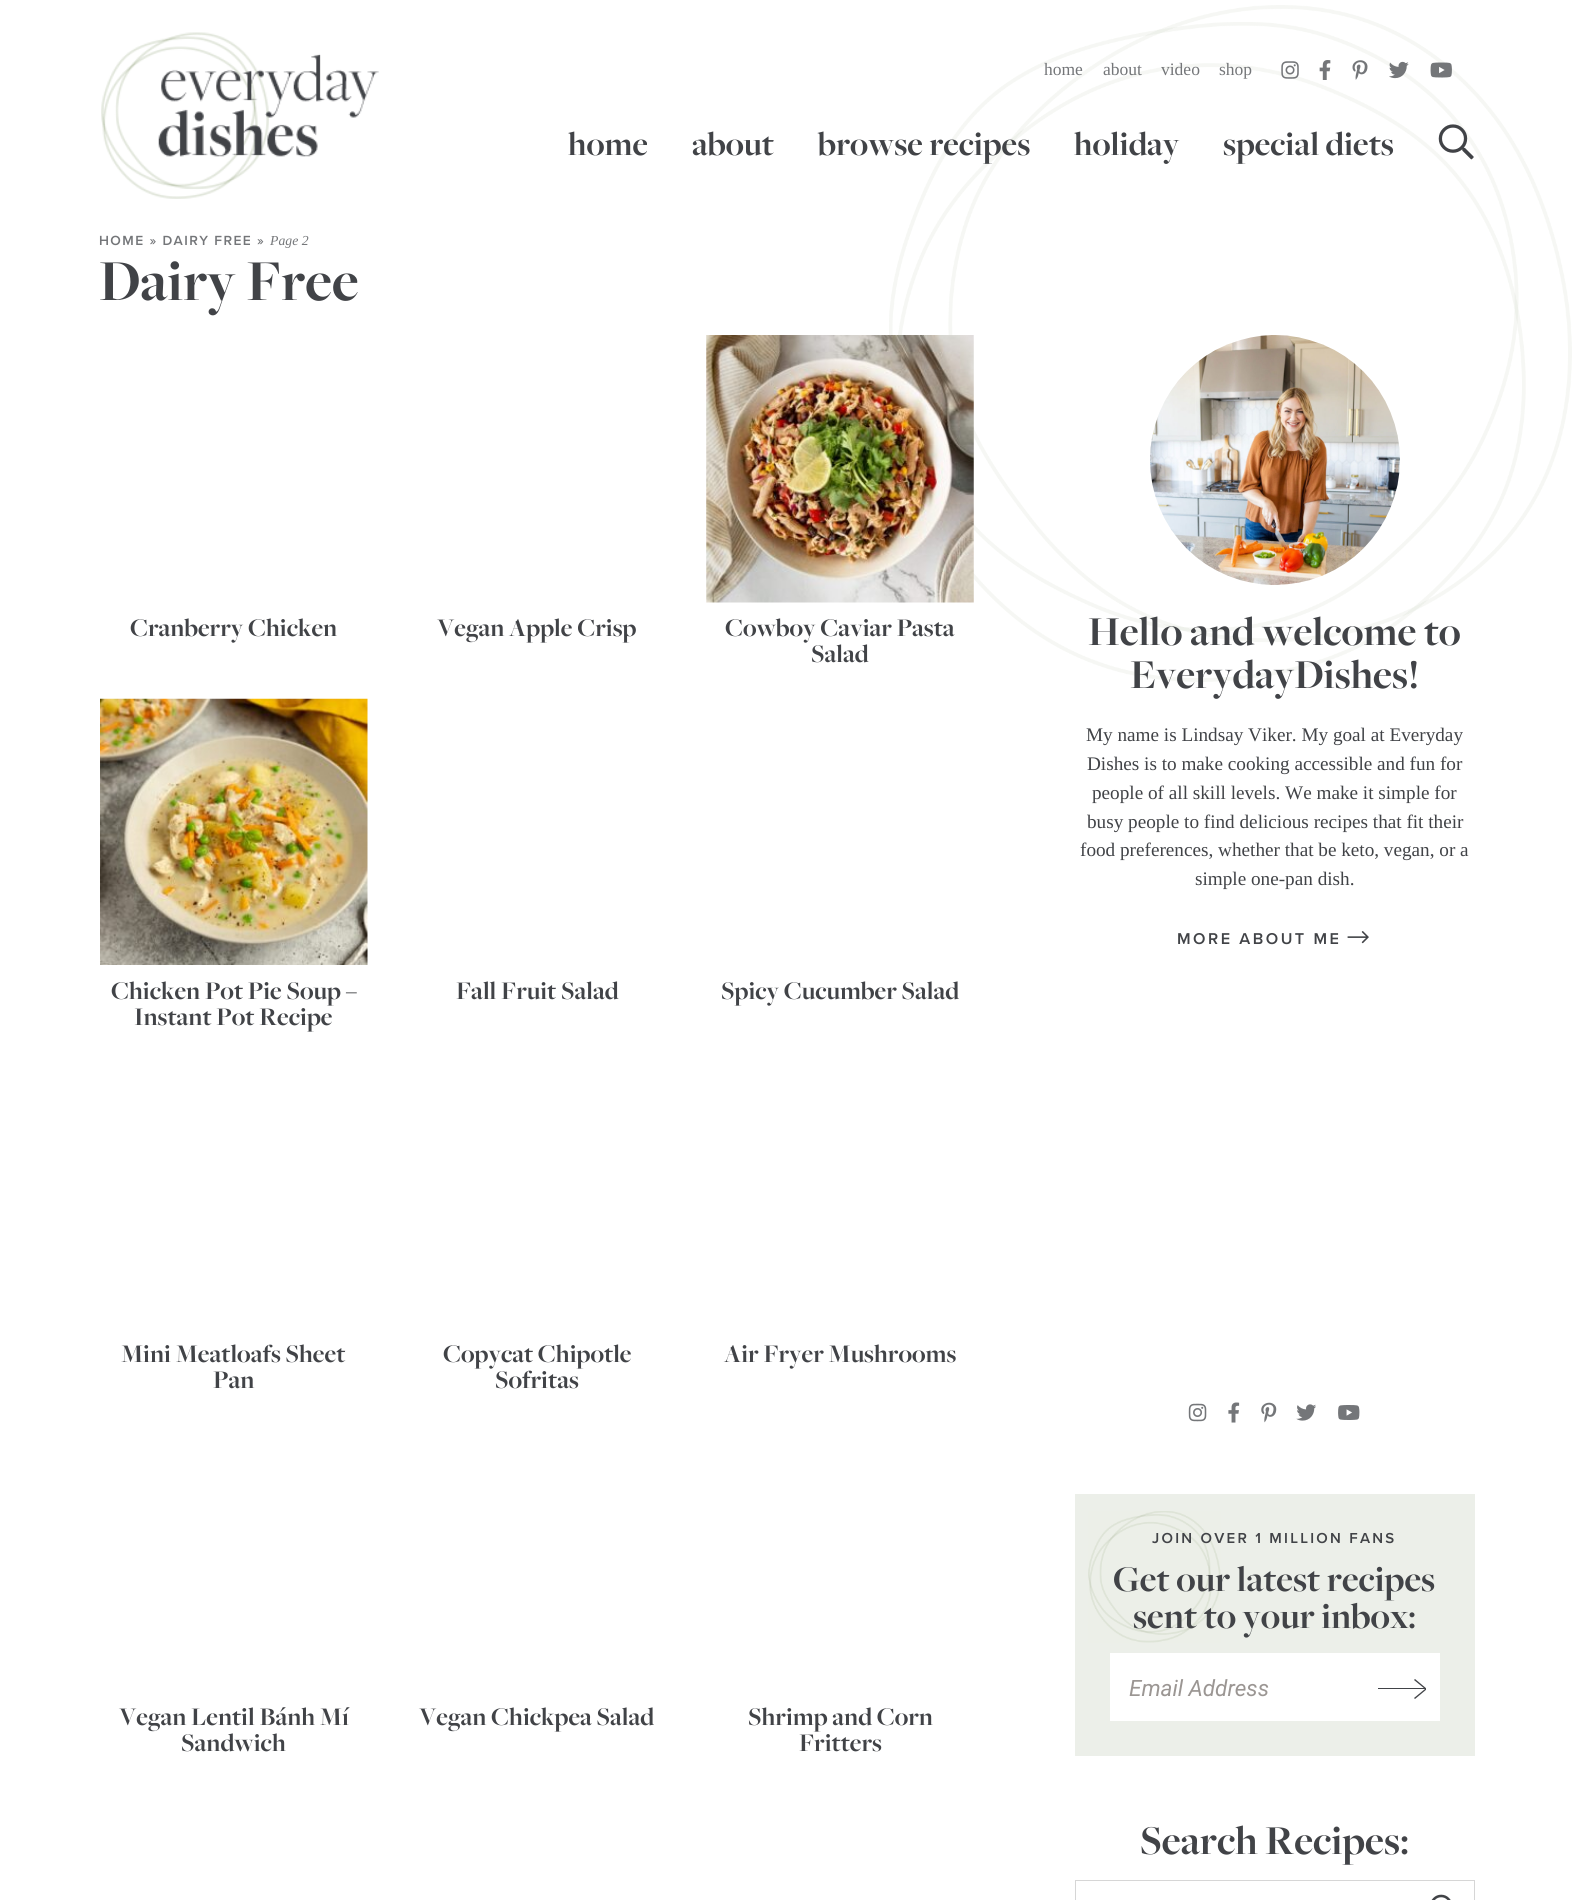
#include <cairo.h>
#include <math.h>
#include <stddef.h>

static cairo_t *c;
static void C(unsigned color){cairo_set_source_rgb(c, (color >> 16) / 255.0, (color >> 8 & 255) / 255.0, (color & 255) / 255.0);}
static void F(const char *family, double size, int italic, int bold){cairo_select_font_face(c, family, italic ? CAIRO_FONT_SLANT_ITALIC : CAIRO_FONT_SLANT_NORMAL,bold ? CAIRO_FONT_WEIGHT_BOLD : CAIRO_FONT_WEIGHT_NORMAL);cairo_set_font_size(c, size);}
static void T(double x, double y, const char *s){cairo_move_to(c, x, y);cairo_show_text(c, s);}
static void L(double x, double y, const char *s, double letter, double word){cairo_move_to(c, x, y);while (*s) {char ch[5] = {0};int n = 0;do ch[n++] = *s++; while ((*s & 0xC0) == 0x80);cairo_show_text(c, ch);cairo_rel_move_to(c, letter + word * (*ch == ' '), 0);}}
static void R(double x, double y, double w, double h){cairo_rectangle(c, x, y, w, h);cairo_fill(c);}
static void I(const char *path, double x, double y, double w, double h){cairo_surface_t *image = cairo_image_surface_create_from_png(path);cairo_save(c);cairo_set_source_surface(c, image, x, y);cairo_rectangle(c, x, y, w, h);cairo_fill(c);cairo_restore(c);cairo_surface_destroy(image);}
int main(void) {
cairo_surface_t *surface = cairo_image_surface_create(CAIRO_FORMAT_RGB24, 1573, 1900);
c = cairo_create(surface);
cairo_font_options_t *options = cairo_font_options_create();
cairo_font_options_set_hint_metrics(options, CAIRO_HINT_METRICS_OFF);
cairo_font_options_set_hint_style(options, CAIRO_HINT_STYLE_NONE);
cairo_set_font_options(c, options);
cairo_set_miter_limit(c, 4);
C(0xffffff);
cairo_paint(c);
I("1.png",889,5,683,677);
I("2.png",101,32,278,167);
F("Liberation Serif",17.5,0,0);
C(0x747679);
T(1044,75,"home");
T(1103,75,"about");
T(1161,75,"video");
T(1219,75,"shop");
I("3.png",1281,61,18,18);
I("4.png",1319,60,12,20);
I("5.png",1352,60,16,20);
I("6.png",1389,61,20,18);
I("7.png",1430,62,22,16);
F("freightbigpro",35,0,1);
C(0x414347);
T(568,155,"home");
T(692,155,"about");
T(818,155,"browse recipes");
T(1074,155,"holiday");
T(1223,155,"special diets");
I("8.png",1438,124,36,36);
F("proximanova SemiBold",13.75,0,0);
C(0x747679);
L(99,245,"HOME » DAIRY FREE »",1.4,0);
F("Liberation Serif",13.75,1,0);
T(270,245,"Page 2");
F("freightbigpro",60,0,1);
C(0x414347);
T(99,300,"Dairy Free");
F("freightbigpro",26.25,0,1);
T(130,636,"Cranberry Chicken");
T(437,636,"Vegan Apple Crisp");
I("9.png",706,335,268,268);
T(725,636,"Cowboy Caviar Pasta");
T(811,662,"Salad");
I("10.png",100,698,268,267);
T(111,999,"Chicken Pot Pie Soup –");
T(134,1025,"Instant Pot Recipe");
T(456,999,"Fall Fruit Salad");
T(721,999,"Spicy Cucumber Salad");
T(121,1362,"Mini Meatloafs Sheet");
T(213,1388,"Pan");
T(443,1362,"Copycat Chipotle");
T(495,1388,"Sofritas");
T(724,1362,"Air Fryer Mushrooms");
T(119,1725,"Vegan Lentil Bánh Mí");
T(181,1751,"Sandwich");
T(419,1725,"Vegan Chickpea Salad");
T(748,1725,"Shrimp and Corn");
T(799,1751,"Fritters");
I("11.png",1150,335,250,250);
F("freightbigpro",42.5,0,1);
T(1088,645,"Hello and welcome to");
T(1130,688,"EverydayDishes!");
F("Liberation Serif",19.2,0,0);
T(1086,741,"My name is Lindsay Viker. My goal at Everyday");
T(1087,770,"Dishes is to make cooking accessible and fun for");
T(1092,799,"people of all skill levels. We make it simple for");
T(1087,828,"busy people to find delicious recipes that fit their");
T(1080,856,"food preferences, whether that be keto, vegan, or a");
T(1195,885,"simple one-pan dish.");
F("proximanova SemiBold",16.25,0,0);
L(1177,944,"MORE ABOUT ME",2.5,0);
I("12.png",1347,931,22,13);
I("13.png",1188,1403,19,19);
I("14.png",1228,1402,12,21);
I("15.png",1261,1402,16,21);
I("16.png",1296,1404,20,17);
I("17.png",1338,1405,22,15);
C(0xecefe9);
R(1075,1494,400,262);
I("18.png",1088,1511,133,132);
F("proximanova SemiBold",15,0,0);
C(0x414347);
L(1152,1543,"JOIN OVER 1 MILLION FANS",2.25,0);
F("freightbigpro",37.5,0,1);
T(1113,1591,"Get our latest recipes");
T(1133,1628,"sent to your inbox:");
C(0xffffff);
R(1110,1653,330,68);
F("Roboto",22.5,1,0);
C(0x9b9693);
T(1129,1696,"Email Address");
cairo_save(c);
cairo_rectangle(c,1378,1679,48,20);
cairo_clip(c);
C(0x414347);
cairo_new_path(c);
cairo_move_to(c,1377,1688);
cairo_line_to(c,1426,1688);
cairo_line_to(c,1426,1689);
cairo_line_to(c,1377,1689);
cairo_close_path(c);
cairo_move_to(c,1415,1699);
cairo_line_to(c,1414,1698);
cairo_line_to(c,1425,1689);
cairo_line_to(c,1414,1680);
cairo_line_to(c,1415,1679);
cairo_line_to(c,1427,1689);
cairo_close_path(c);
cairo_fill(c);
cairo_restore(c);
F("freightbigpro",42.5,0,1);
C(0x414347);
T(1140,1854,"Search Recipes:");
cairo_rectangle(c,1075.5,1880.5,399,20);
C(0xd6d6d6);
cairo_set_line_width(c,1);
cairo_stroke(c);
I("19.png",1431,1894,20,6);
cairo_surface_write_to_png(surface, "o.png");
cairo_font_options_destroy(options);
cairo_destroy(c);
cairo_surface_destroy(surface);
return 0;
}
